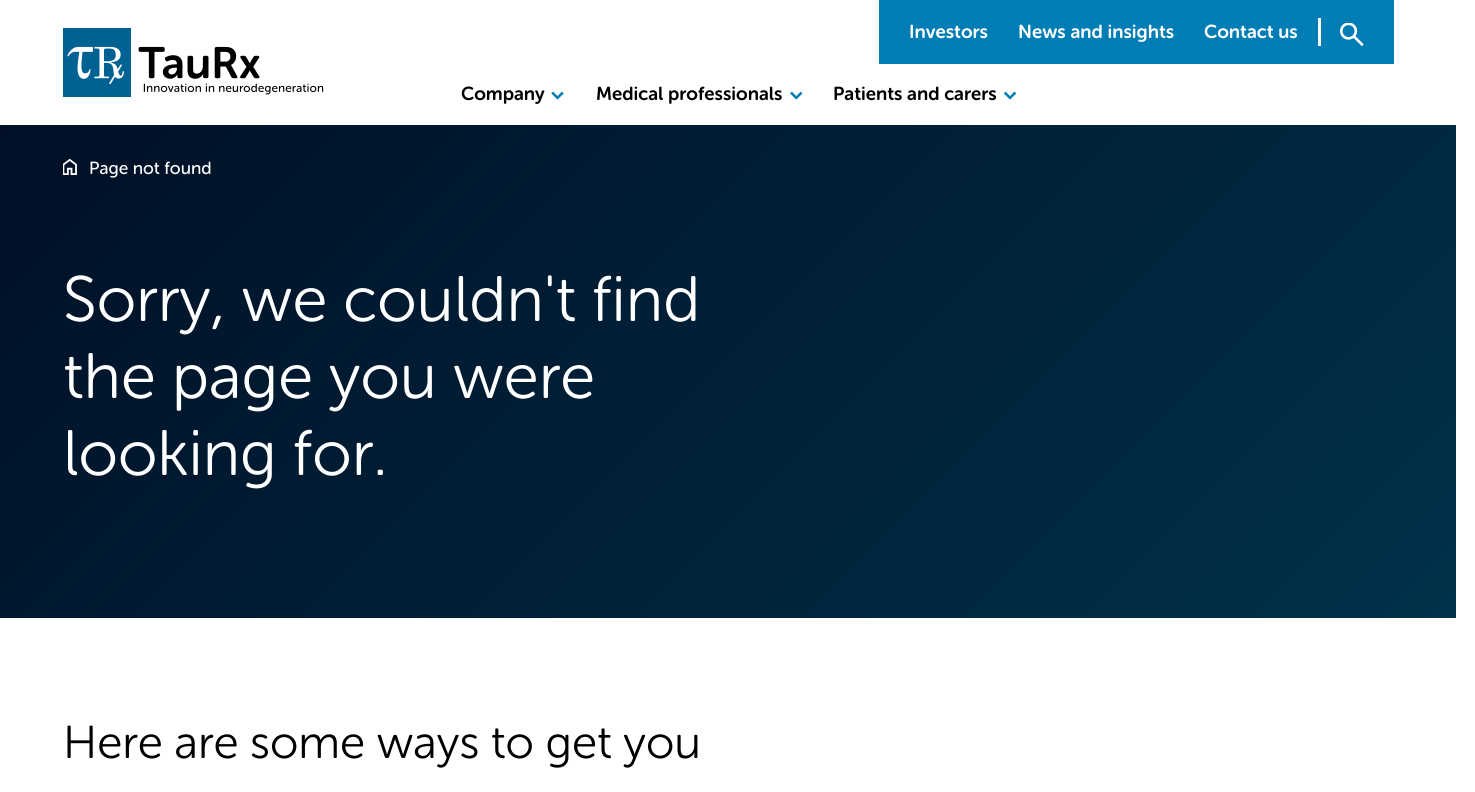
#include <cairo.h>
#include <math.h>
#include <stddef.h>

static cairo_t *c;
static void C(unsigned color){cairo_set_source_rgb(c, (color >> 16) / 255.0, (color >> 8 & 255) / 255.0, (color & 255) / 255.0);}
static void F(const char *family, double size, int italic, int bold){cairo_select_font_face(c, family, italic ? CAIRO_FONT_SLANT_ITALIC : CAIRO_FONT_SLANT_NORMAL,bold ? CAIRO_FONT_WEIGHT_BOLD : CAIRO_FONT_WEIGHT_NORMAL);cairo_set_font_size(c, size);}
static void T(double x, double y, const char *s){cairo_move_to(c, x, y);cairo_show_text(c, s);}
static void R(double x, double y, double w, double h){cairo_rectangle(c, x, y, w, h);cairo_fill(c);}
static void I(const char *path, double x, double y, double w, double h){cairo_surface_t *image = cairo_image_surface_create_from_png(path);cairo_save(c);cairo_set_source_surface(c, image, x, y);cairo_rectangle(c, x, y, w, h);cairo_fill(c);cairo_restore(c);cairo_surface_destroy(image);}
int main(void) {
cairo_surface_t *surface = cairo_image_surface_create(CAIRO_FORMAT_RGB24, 1475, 792);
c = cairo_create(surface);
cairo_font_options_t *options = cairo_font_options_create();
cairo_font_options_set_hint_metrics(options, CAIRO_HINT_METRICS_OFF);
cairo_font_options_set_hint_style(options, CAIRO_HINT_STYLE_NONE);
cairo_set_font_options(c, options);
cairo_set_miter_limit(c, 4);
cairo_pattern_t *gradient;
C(0xffffff);
cairo_paint(c);
I("1.png",63,28,261,69);
C(0x007db4);
R(879,0,515,64);
F("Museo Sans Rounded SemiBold",18.75,0,0);
C(0xffffff);
T(909,38,"Investors");
T(1018,38,"News and insights");
R(1318,18,3,28);
T(1204,38,"Contact us");
I("2.png",1340,23,24,23);
C(0x000000);
T(461,100,"Company");
I("3.png",551,91,13,9);
T(596,100,"Medical professionals");
I("4.png",790,91,13,9);
T(833,100,"Patients and carers");
I("5.png",1004,91,12,9);
gradient = cairo_pattern_create_linear(210,-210,1247,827);
cairo_pattern_add_color_stop_rgba(gradient,0,0,0.051,0.137,1);
cairo_pattern_add_color_stop_rgba(gradient,1,0,0.196,0.294,1);
cairo_set_source(c,gradient);
cairo_pattern_destroy(gradient);
R(0,125,1456,493);
I("6.png",63,159,14,16);
F("Museo Sans Rounded",17.5,0,0);
C(0xffffff);
T(89,174,"Page not found");
F("Museo Sans Rounded Light",64,0,0);
T(63,321,"Sorry, we couldn't find");
T(63,398,"the page you were");
T(63,475,"looking for.");
F("Museo Sans Rounded Light",46.1,0,0);
C(0x000000);
T(63,758,"Here are some ways to get you");
cairo_surface_write_to_png(surface, "o.png");
cairo_font_options_destroy(options);
cairo_destroy(c);
cairo_surface_destroy(surface);
return 0;
}
